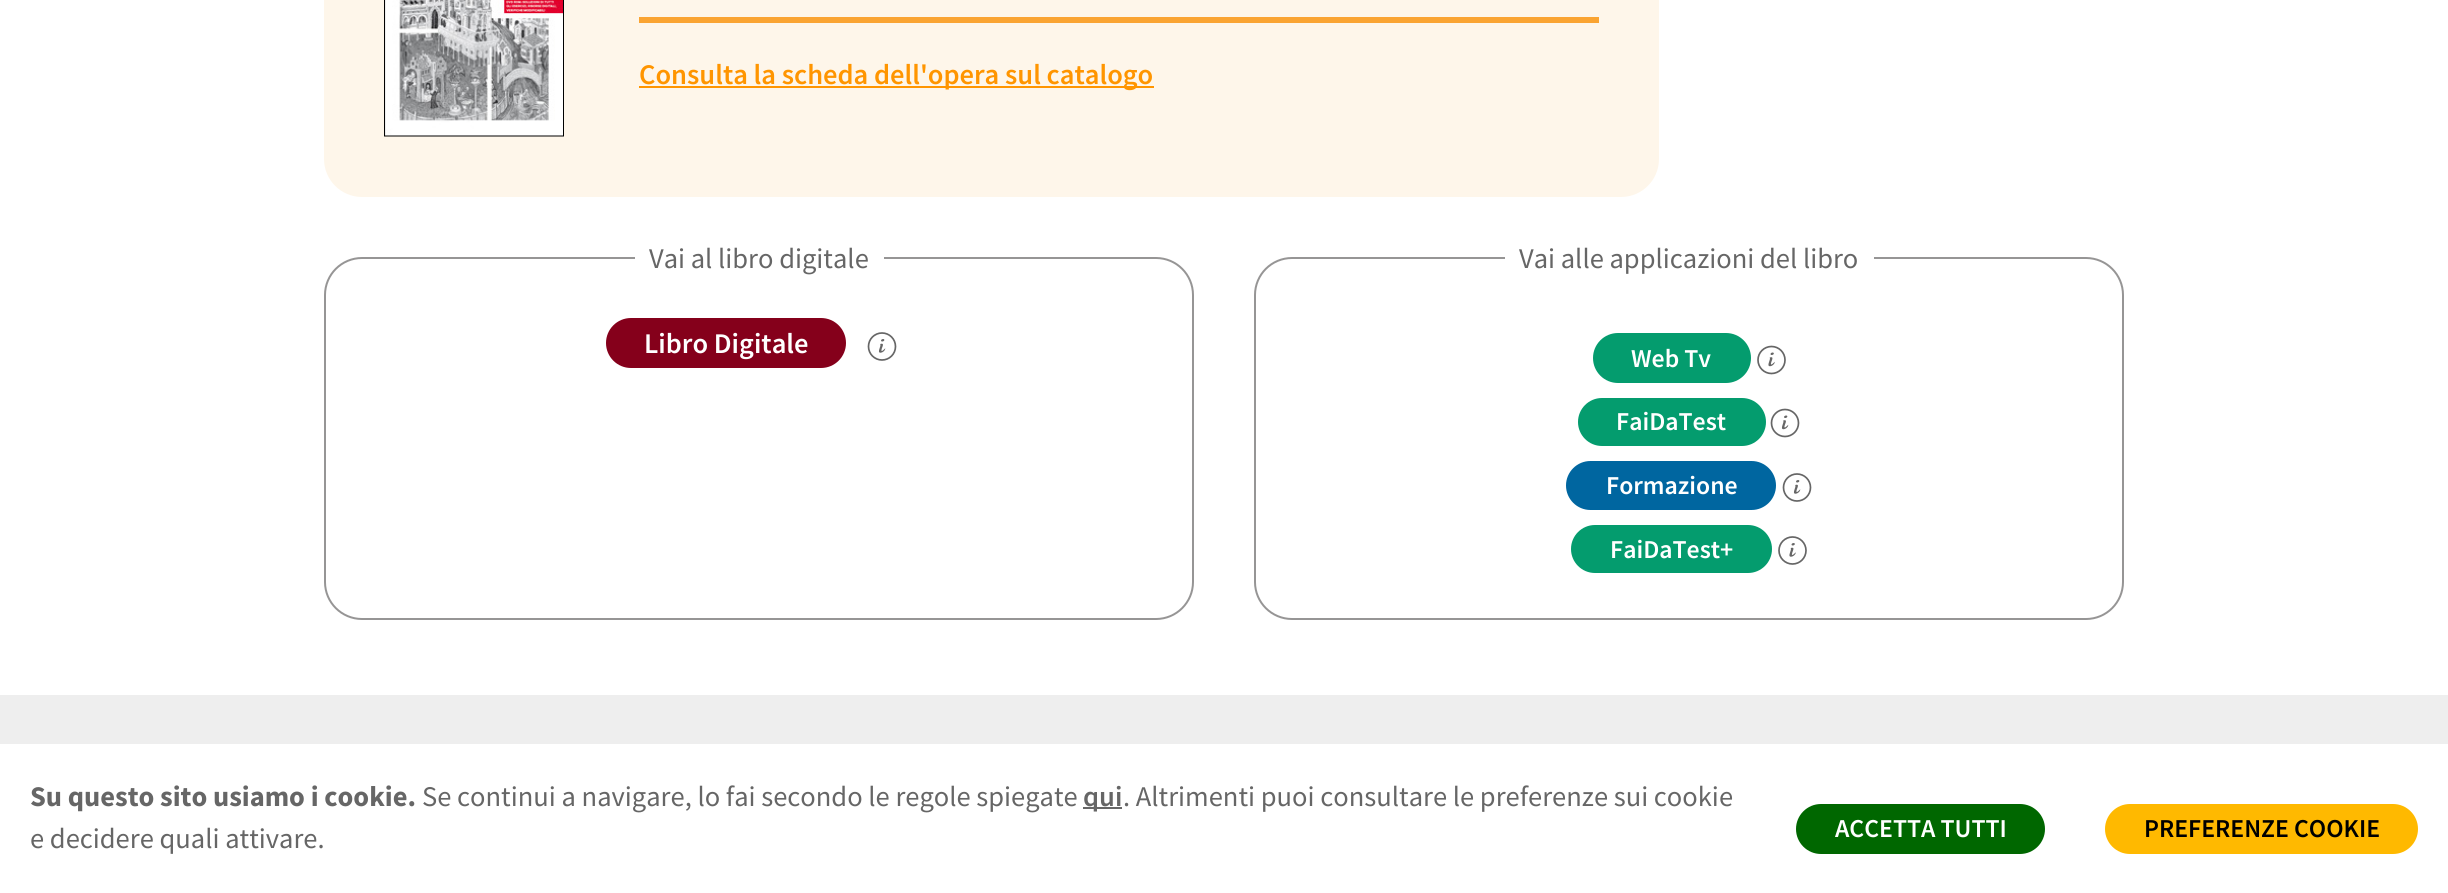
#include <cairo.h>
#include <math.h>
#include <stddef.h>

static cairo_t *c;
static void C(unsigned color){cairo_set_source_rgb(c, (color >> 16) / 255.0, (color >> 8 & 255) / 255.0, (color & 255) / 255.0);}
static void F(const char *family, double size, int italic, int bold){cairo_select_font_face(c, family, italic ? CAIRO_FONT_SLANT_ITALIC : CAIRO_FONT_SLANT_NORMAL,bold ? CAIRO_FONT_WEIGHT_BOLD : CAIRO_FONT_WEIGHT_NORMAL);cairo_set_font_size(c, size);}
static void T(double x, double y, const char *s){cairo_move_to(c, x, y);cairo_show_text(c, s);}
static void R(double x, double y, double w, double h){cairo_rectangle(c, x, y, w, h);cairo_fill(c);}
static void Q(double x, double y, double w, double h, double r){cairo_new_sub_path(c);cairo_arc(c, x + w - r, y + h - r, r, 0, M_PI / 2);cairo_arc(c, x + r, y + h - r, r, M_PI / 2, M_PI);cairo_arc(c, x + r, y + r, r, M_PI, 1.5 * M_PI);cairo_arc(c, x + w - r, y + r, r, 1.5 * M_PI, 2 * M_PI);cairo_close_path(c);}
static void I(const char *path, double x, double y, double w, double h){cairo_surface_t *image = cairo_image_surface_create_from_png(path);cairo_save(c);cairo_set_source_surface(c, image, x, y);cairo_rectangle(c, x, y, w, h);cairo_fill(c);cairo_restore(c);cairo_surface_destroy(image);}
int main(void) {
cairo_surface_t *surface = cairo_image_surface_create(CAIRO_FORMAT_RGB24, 2448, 893);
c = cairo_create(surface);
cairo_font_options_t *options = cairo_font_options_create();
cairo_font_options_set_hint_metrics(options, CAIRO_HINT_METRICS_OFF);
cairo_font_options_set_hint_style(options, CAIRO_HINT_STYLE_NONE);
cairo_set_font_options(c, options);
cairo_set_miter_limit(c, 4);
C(0xffffff);
cairo_paint(c);
C(0xfef6ea);
Q(324,-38,1335,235,38);
cairo_fill(c);
I("1.png",384,0,180,137);
C(0xfaa432);
R(639,17,960,6);
C(0xff9500);
R(639,86,515,2);
F("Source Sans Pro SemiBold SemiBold",28.5,0,0);
T(639,84,"Consulta la scheda dell'opera sul catalogo");
Q(325,258,868,361,37);
C(0x969595);
cairo_stroke(c);
C(0xffffff);
R(635,257,249,2);
F("Source Sans Pro",28.5,0,0);
C(0x666666);
T(649,268,"Vai al libro digitale");
C(0x85001b);
Q(606,318,240,50,25);
cairo_fill(c);
F("Source Sans Pro SemiBold SemiBold",28.5,0,0);
C(0xffffff);
T(644,353,"Libro Digitale");
I("2.png",867,332,30,29);
Q(1255,258,868,361,37);
C(0x969595);
cairo_stroke(c);
C(0xffffff);
R(1505,257,369,2);
F("Source Sans Pro",28.5,0,0);
C(0x666666);
T(1519,268,"Vai alle applicazioni del libro");
C(0x049c6e);
Q(1593,333,158,50,25);
cairo_fill(c);
F("Source Sans Pro SemiBold SemiBold",25.75,0,0);
C(0xffffff);
T(1631,367,"Web Tv");
I("3.png",1757,345,29,30);
C(0x049c6e);
Q(1578,398,188,48,24);
cairo_fill(c);
C(0xffffff);
T(1616,430,"FaiDaTest");
I("4.png",1770,408,30,30);
C(0x0066a0);
Q(1566,461,210,49,24.5);
cairo_fill(c);
C(0xffffff);
T(1606,494,"Formazione");
I("2.png",1782,473,30,29);
C(0x049c6e);
Q(1571,525,201,48,24);
cairo_fill(c);
C(0xffffff);
T(1610,558,"FaiDaTest+");
I("5.png",1778,536,29,29);
C(0xeeeeee);
R(0,695,2448,49);
F("Source Sans Pro",28.5,0,1);
C(0x666666);
T(30,806,"Su questo sito usiamo i cookie.");
F("Source Sans Pro",28.5,0,0);
T(422,806,"Se continui a navigare, lo fai secondo le regole spiegate");
R(1083,807,39,2);
F("Source Sans Pro SemiBold SemiBold",28.5,0,0);
T(1083,806,"qui");
F("Source Sans Pro",28.5,0,0);
T(1123,806,". Altrimenti puoi consultare le preferenze sui cookie");
T(30,848,"e decidere quali attivare.");
C(0x006700);
Q(1796,804,249,50,25);
cairo_fill(c);
F("Source Sans Pro SemiBold SemiBold",25.75,0,0);
C(0xffffff);
T(1835,837,"ACCETTA TUTTI");
C(0xffb900);
Q(2105,804,313,50,25);
cairo_fill(c);
C(0x000000);
T(2144,837,"PREFERENZE COOKIE");
cairo_surface_write_to_png(surface, "o.png");
cairo_font_options_destroy(options);
cairo_destroy(c);
cairo_surface_destroy(surface);
return 0;
}
